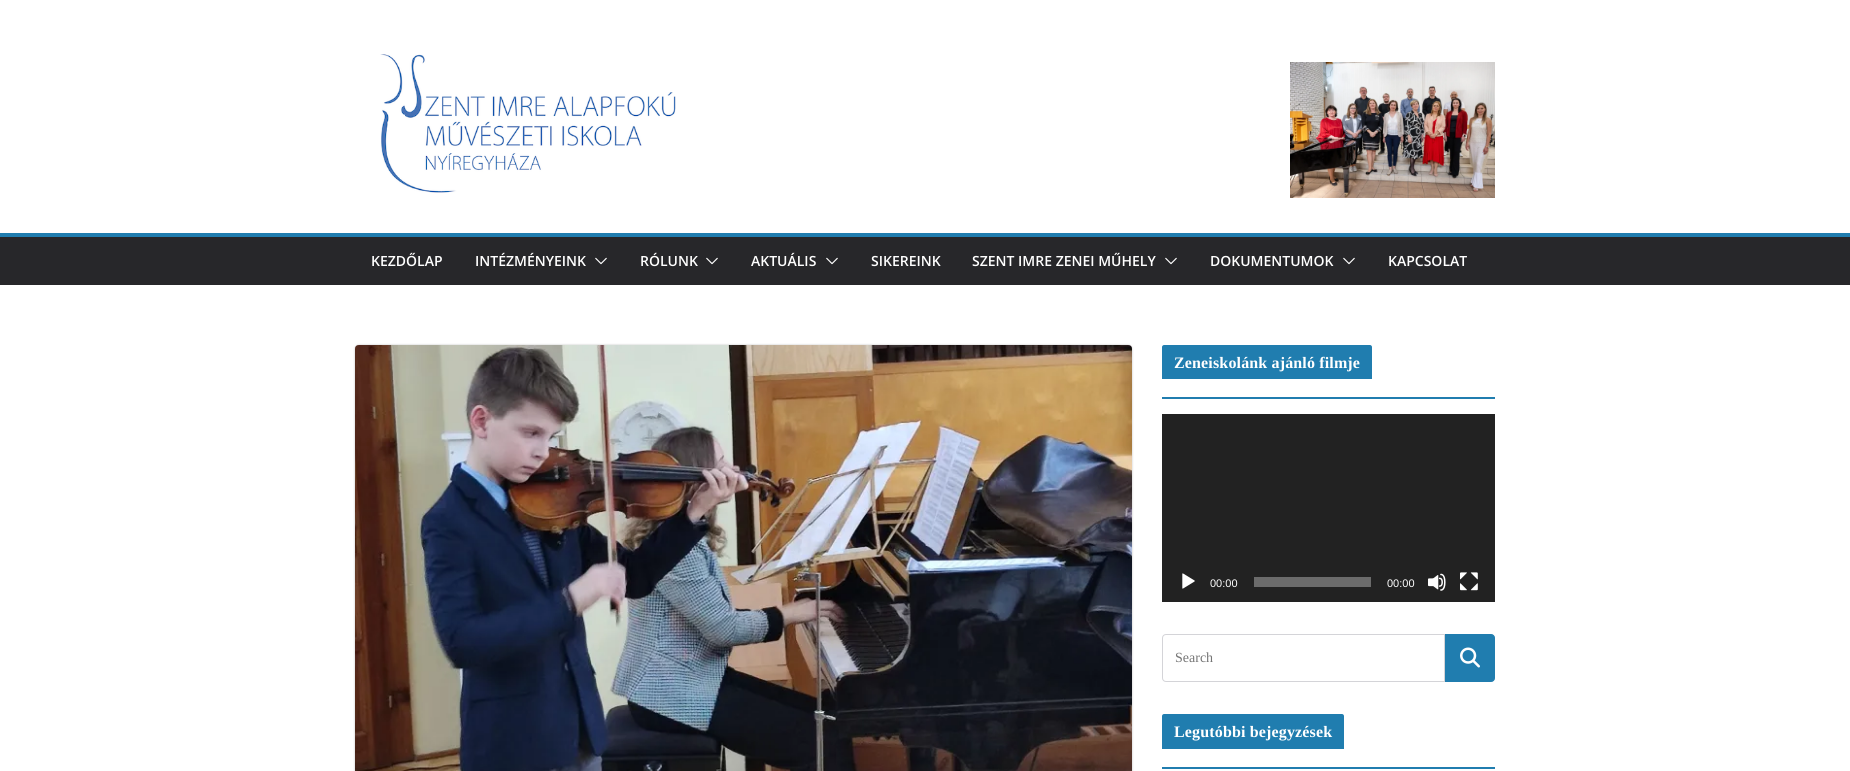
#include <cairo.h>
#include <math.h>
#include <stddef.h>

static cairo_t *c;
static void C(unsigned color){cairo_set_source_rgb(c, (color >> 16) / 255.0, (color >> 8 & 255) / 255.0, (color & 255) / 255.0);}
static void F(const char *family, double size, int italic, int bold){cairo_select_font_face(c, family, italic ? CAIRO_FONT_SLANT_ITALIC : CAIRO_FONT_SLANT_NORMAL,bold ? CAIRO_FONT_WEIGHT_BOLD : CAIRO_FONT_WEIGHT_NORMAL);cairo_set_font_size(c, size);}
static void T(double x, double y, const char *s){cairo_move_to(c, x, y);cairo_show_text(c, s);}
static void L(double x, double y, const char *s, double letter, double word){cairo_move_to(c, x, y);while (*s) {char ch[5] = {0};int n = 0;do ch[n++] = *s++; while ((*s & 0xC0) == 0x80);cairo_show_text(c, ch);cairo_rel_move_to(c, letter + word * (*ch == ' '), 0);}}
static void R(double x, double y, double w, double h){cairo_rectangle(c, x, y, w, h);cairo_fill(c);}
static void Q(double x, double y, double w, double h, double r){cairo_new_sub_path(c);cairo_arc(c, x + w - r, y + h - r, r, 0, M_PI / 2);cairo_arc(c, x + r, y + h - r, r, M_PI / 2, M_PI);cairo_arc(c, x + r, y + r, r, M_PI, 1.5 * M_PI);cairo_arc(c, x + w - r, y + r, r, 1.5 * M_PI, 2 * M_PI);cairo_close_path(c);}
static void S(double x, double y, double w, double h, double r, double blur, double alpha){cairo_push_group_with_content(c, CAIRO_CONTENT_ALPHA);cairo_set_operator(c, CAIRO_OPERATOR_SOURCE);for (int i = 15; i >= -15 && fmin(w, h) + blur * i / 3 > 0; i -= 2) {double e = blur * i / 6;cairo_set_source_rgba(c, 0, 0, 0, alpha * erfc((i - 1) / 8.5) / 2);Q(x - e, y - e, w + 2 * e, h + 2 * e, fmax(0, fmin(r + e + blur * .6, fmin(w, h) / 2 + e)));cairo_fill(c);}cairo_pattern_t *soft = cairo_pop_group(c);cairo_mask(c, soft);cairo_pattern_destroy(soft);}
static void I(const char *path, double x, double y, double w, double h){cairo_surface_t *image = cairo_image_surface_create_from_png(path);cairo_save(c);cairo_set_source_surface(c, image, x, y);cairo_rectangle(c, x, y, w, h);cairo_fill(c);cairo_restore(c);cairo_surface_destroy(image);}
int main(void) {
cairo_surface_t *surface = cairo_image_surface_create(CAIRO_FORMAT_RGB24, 1850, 771);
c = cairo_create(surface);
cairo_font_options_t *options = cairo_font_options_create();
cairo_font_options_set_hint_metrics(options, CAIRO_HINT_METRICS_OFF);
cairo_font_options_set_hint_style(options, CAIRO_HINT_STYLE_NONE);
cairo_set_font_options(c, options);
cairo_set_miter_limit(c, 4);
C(0xffffff);
cairo_paint(c);
I("1.png",380,54,296,139);
I("2.png",1290,62,205,136);
C(0x27272a);
R(0,237,1850,48);
C(0x207daf);
R(0,233,1850,4);
F("Open Sans SemiBold",14,0,0);
C(0xffffff);
T(371,266,"KEZDŐLAP");
T(475,266,"INTÉZMÉNYEINK");
I("3.png",595,257,12,8);
T(640,266,"RÓLUNK");
I("3.png",706,257,12,8);
T(751,266,"AKTUÁLIS");
I("3.png",826,257,12,8);
T(871,266,"SIKEREINK");
T(972,266,"SZENT IMRE ZENEI MŰHELY");
I("3.png",1165,257,12,8);
T(1210,266,"DOKUMENTUMOK");
I("3.png",1343,257,12,8);
T(1388,266,"KAPCSOLAT");
C(0x000000);
S(355,345,777,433,4,1,.24);
I("4.png",355,345,777,426);
C(0x207daf);
R(1162,397,333,2);
cairo_new_path(c);
cairo_move_to(c,1164,345);
cairo_line_to(c,1370,345);
cairo_curve_to(c,1371,345,1372,346,1372,347);
cairo_line_to(c,1372,379);
cairo_line_to(c,1162,379);
cairo_line_to(c,1162,347);
cairo_curve_to(c,1162,346,1163,345,1164,345);
cairo_close_path(c);
cairo_fill(c);
F("Liberation Serif",16,0,1);
C(0xffffff);
L(1174,368,"Zeneiskolánk ajánló filmje",.15,0);
C(0x222222);
R(1162,414,333,188);
I("5.png",1182,573,13,16);
F("Liberation Sans",11,0,0);
C(0xffffff);
T(1210,587,"00:00");
C(0x6b6b6b);
R(1254,577,117,10);
C(0xffffff);
T(1387,587,"00:00");
I("6.png",1428,573,18,18);
I("7.png",1460,572,18,19);
cairo_new_path(c);
cairo_move_to(c,1166,634.5);
cairo_line_to(c,1444.5,634.5);
cairo_line_to(c,1444.5,681.5);
cairo_line_to(c,1166,681.5);
cairo_curve_to(c,1164,681.5,1162.5,680,1162.5,678);
cairo_line_to(c,1162.5,638);
cairo_curve_to(c,1162.5,636,1164,634.5,1166,634.5);
cairo_close_path(c);
C(0xd4d4d8);
cairo_set_line_width(c,1);
cairo_stroke(c);
F("Liberation Serif",14,0,0);
C(0x757575);
T(1175,662,"Search");
C(0x207daf);
cairo_new_path(c);
cairo_move_to(c,1445.5,634.5);
cairo_line_to(c,1491,634.5);
cairo_curve_to(c,1493,634.5,1494.5,636,1494.5,638);
cairo_line_to(c,1494.5,678);
cairo_curve_to(c,1494.5,680,1493,681.5,1491,681.5);
cairo_line_to(c,1445.5,681.5);
cairo_close_path(c);
cairo_fill_preserve(c);
cairo_stroke(c);
I("8.png",1460,647,20,21);
R(1162,767,333,2);
cairo_new_path(c);
cairo_move_to(c,1164,714);
cairo_line_to(c,1342,714);
cairo_curve_to(c,1343,714,1344,715,1344,716);
cairo_line_to(c,1344,749);
cairo_line_to(c,1162,749);
cairo_line_to(c,1162,716);
cairo_curve_to(c,1162,715,1163,714,1164,714);
cairo_close_path(c);
cairo_fill(c);
F("Liberation Serif",16,0,1);
C(0xffffff);
L(1174,737,"Legutóbbi bejegyzések",.15,0);
cairo_surface_write_to_png(surface, "o.png");
cairo_font_options_destroy(options);
cairo_destroy(c);
cairo_surface_destroy(surface);
return 0;
}
